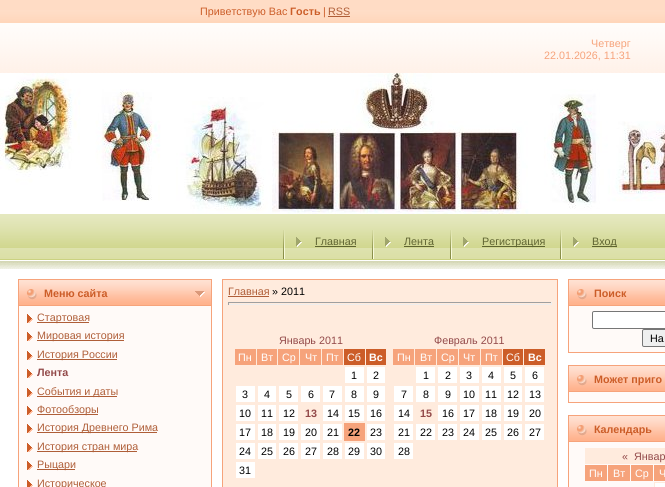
#include <cairo.h>
#include <math.h>
#include <stddef.h>

static cairo_t *c;
static void C(unsigned color){cairo_set_source_rgb(c, (color >> 16) / 255.0, (color >> 8 & 255) / 255.0, (color & 255) / 255.0);}
static void F(const char *family, double size, int italic, int bold){cairo_select_font_face(c, family, italic ? CAIRO_FONT_SLANT_ITALIC : CAIRO_FONT_SLANT_NORMAL,bold ? CAIRO_FONT_WEIGHT_BOLD : CAIRO_FONT_WEIGHT_NORMAL);cairo_set_font_size(c, size);}
static void T(double x, double y, const char *s){cairo_move_to(c, x, y);cairo_show_text(c, s);}
static void R(double x, double y, double w, double h){cairo_rectangle(c, x, y, w, h);cairo_fill(c);}
static void Q(double x, double y, double w, double h, double r){cairo_new_sub_path(c);cairo_arc(c, x + w - r, y + h - r, r, 0, M_PI / 2);cairo_arc(c, x + r, y + h - r, r, M_PI / 2, M_PI);cairo_arc(c, x + r, y + r, r, M_PI, 1.5 * M_PI);cairo_arc(c, x + w - r, y + r, r, 1.5 * M_PI, 2 * M_PI);cairo_close_path(c);}
static void I(const char *path, double x, double y, double w, double h){cairo_surface_t *image = cairo_image_surface_create_from_png(path);cairo_save(c);cairo_set_source_surface(c, image, x, y);cairo_rectangle(c, x, y, w, h);cairo_fill(c);cairo_restore(c);cairo_surface_destroy(image);}
int main(void) {
cairo_surface_t *surface = cairo_image_surface_create(CAIRO_FORMAT_RGB24, 665, 487);
c = cairo_create(surface);
cairo_font_options_t *options = cairo_font_options_create();
cairo_font_options_set_hint_metrics(options, CAIRO_HINT_METRICS_OFF);
cairo_font_options_set_hint_style(options, CAIRO_HINT_STYLE_NONE);
cairo_set_font_options(c, options);
cairo_set_miter_limit(c, 4);
C(0xffffff);
cairo_paint(c);
I("1.png",0,0,665,269);
F("Liberation Sans",10.75,0,0);
C(0xcc5d28);
T(200,15,"Приветствую Вас");
F("Liberation Sans",10.75,0,1);
T(290,15,"Гость");
F("Liberation Sans",10.75,0,0);
T(323,15,"|");
C(0xaf5e38);
T(328,15,"RSS");
R(328,16,22,1);
C(0xf6a37b);
T(591,47,"Четверг");
T(544,59,"22.01.2026, 11:31");
I("2.png",0,73,665,141);
I("3.png",283,230,19,29);
C(0x5f6431);
T(315,245,"Главная");
R(315,246,41,1);
I("3.png",372,230,19,29);
T(404,245,"Лента");
R(404,246,30,1);
I("3.png",450,230,19,29);
R(482,246,63,1);
T(482,245,"Регистрация");
I("3.png",560,230,19,29);
R(592,246,25,1);
T(592,245,"Вход");
C(0xf6a37b);
R(18,279,194,208);
I("4.png",19,280,192,25);
F("Liberation Sans",10.75,0,1);
C(0xcc5d28);
T(44,297,"Меню сайта");
C(0xfffaf8);
R(19,306,192,181);
I("5.png",27,314,6,9);
C(0xaf5e38);
R(37,322,52,1);
F("Liberation Sans",10.75,0,0);
T(37,321,"Стартовая");
I("5.png",27,332,6,9);
R(37,340,87,1);
T(37,339,"Мировая история");
I("5.png",27,351,6,9);
R(37,359,80,1);
T(37,358,"История России");
I("5.png",27,369,6,9);
F("Liberation Sans",10.75,0,1);
C(0x934a4a);
T(37,376,"Лента");
I("5.png",27,388,6,9);
C(0xaf5e38);
R(37,396,80,1);
F("Liberation Sans",10.75,0,0);
T(37,395,"События и даты");
I("5.png",27,406,6,9);
R(37,414,61,1);
T(37,413,"Фотообзоры");
I("5.png",27,424,6,9);
R(37,432,120,1);
T(37,431,"История Древнего Рима");
I("5.png",27,443,6,9);
R(37,451,100,1);
T(37,450,"История стран мира");
I("5.png",27,461,6,9);
R(37,469,38,1);
T(37,468,"Рыцари");
I("6.png",27,480,6,7);
T(37,487,"Историческое");
C(0xffebdd);
cairo_rectangle(c,222.5,279.5,335,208);
cairo_fill_preserve(c);
C(0xf6a37b);
cairo_set_line_width(c,1);
cairo_stroke(c);
C(0xaf5e38);
T(228,295,"Главная");
R(228,296,41,1);
C(0x000000);
T(272,295,"» 2011");
C(0x9f9f9f);
R(228,302,324,1);
C(0xeeeeee);
R(551,302,1,3);
R(228,304,324,1);
C(0x9f9f9f);
R(228,302,1,3);
C(0x934a4a);
T(279,344,"Январь 2011");
C(0xf6a37b);
R(235,349,21,16);
C(0xffffff);
T(238,361,"Пн");
C(0xf6a37b);
R(257,349,20,16);
C(0xffffff);
T(261,361,"Вт");
C(0xf6a37b);
R(278,349,21,16);
C(0xffffff);
T(282,361,"Ср");
C(0xf6a37b);
R(300,349,21,16);
C(0xffffff);
T(305,361,"Чт");
C(0xf6a37b);
R(322,349,21,16);
C(0xffffff);
T(326,361,"Пт");
C(0xcc5d28);
R(344,349,21,16);
C(0xffffff);
T(347,361,"Сб");
C(0xcc5d28);
R(366,349,20,16);
F("Liberation Sans",10.75,0,1);
C(0xffffff);
T(369,361,"Вс");
R(345,367,19,16);
F("Liberation Sans",10.75,0,0);
C(0x000000);
T(351,379,"1");
C(0xffffff);
R(367,367,18,16);
C(0x000000);
T(373,379,"2");
C(0xffffff);
R(236,386,19,16);
C(0x000000);
T(242,398,"3");
C(0xffffff);
R(258,386,18,16);
C(0x000000);
T(264,398,"4");
C(0xffffff);
R(279,386,19,16);
C(0x000000);
T(286,398,"5");
C(0xffffff);
R(301,386,19,16);
C(0x000000);
T(308,398,"6");
C(0xffffff);
R(323,386,19,16);
C(0x000000);
T(329,398,"7");
C(0xffffff);
R(345,386,19,16);
C(0x000000);
T(351,398,"8");
C(0xffffff);
R(367,386,18,16);
C(0x000000);
T(373,398,"9");
C(0xffffff);
R(236,405,19,16);
C(0x000000);
T(239,417,"10");
C(0xffffff);
R(258,405,18,16);
C(0x000000);
T(261,417,"11");
C(0xffffff);
R(279,405,19,16);
C(0x000000);
T(283,417,"12");
F("Liberation Sans",10.75,0,1);
C(0x934a4a);
T(305,417,"13");
C(0xffffff);
R(323,405,19,16);
F("Liberation Sans",10.75,0,0);
C(0x000000);
T(327,417,"14");
C(0xffffff);
R(345,405,19,16);
C(0x000000);
T(348,417,"15");
C(0xffffff);
R(367,405,18,16);
C(0x000000);
T(370,417,"16");
C(0xffffff);
R(236,424,19,16);
C(0x000000);
T(239,436,"17");
C(0xffffff);
R(258,424,18,16);
C(0x000000);
T(261,436,"18");
C(0xffffff);
R(279,424,19,16);
C(0x000000);
T(283,436,"19");
C(0xffffff);
R(301,424,19,16);
C(0x000000);
T(305,436,"20");
C(0xffffff);
R(323,424,19,16);
C(0x000000);
T(327,436,"21");
C(0xf6a37b);
R(344,423,21,18);
F("Liberation Sans",10.75,0,1);
C(0x000000);
T(348,436,"22");
C(0xffffff);
R(367,424,18,16);
F("Liberation Sans",10.75,0,0);
C(0x000000);
T(370,436,"23");
C(0xffffff);
R(236,443,19,16);
C(0x000000);
T(239,455,"24");
C(0xffffff);
R(258,443,18,16);
C(0x000000);
T(261,455,"25");
C(0xffffff);
R(279,443,19,16);
C(0x000000);
T(283,455,"26");
C(0xffffff);
R(301,443,19,16);
C(0x000000);
T(305,455,"27");
C(0xffffff);
R(323,443,19,16);
C(0x000000);
T(327,455,"28");
C(0xffffff);
R(345,443,19,16);
C(0x000000);
T(348,455,"29");
C(0xffffff);
R(367,443,18,16);
C(0x000000);
T(370,455,"30");
C(0xffffff);
R(236,462,19,16);
C(0x000000);
T(239,474,"31");
C(0x934a4a);
T(434,344,"Февраль 2011");
C(0xf6a37b);
R(393,349,21,16);
C(0xffffff);
T(397,361,"Пн");
C(0xf6a37b);
R(415,349,21,16);
C(0xffffff);
T(420,361,"Вт");
C(0xf6a37b);
R(437,349,21,16);
C(0xffffff);
T(441,361,"Ср");
C(0xf6a37b);
R(459,349,21,16);
C(0xffffff);
T(463,361,"Чт");
C(0xf6a37b);
R(481,349,21,16);
C(0xffffff);
T(485,361,"Пт");
C(0xcc5d28);
R(503,349,20,16);
C(0xffffff);
T(506,361,"Сб");
C(0xcc5d28);
R(524,349,21,16);
F("Liberation Sans",10.75,0,1);
C(0xffffff);
T(528,361,"Вс");
R(416,367,19,16);
F("Liberation Sans",10.75,0,0);
C(0x000000);
T(423,379,"1");
C(0xffffff);
R(438,367,19,16);
C(0x000000);
T(445,379,"2");
C(0xffffff);
R(460,367,19,16);
C(0x000000);
T(466,379,"3");
C(0xffffff);
R(482,367,19,16);
C(0x000000);
T(488,379,"4");
C(0xffffff);
R(504,367,18,16);
C(0x000000);
T(510,379,"5");
C(0xffffff);
R(525,367,19,16);
C(0x000000);
T(532,379,"6");
C(0xffffff);
R(394,386,19,16);
C(0x000000);
T(401,398,"7");
C(0xffffff);
R(416,386,19,16);
C(0x000000);
T(423,398,"8");
C(0xffffff);
R(438,386,19,16);
C(0x000000);
T(445,398,"9");
C(0xffffff);
R(460,386,19,16);
C(0x000000);
T(463,398,"10");
C(0xffffff);
R(482,386,19,16);
C(0x000000);
T(485,398,"11");
C(0xffffff);
R(504,386,18,16);
C(0x000000);
T(507,398,"12");
C(0xffffff);
R(525,386,19,16);
C(0x000000);
T(529,398,"13");
C(0xffffff);
R(394,405,19,16);
C(0x000000);
T(398,417,"14");
F("Liberation Sans",10.75,0,1);
C(0x934a4a);
T(420,417,"15");
C(0xffffff);
R(438,405,19,16);
F("Liberation Sans",10.75,0,0);
C(0x000000);
T(442,417,"16");
C(0xffffff);
R(460,405,19,16);
C(0x000000);
T(463,417,"17");
C(0xffffff);
R(482,405,19,16);
C(0x000000);
T(485,417,"18");
C(0xffffff);
R(504,405,18,16);
C(0x000000);
T(507,417,"19");
C(0xffffff);
R(525,405,19,16);
C(0x000000);
T(529,417,"20");
C(0xffffff);
R(394,424,19,16);
C(0x000000);
T(398,436,"21");
C(0xffffff);
R(416,424,19,16);
C(0x000000);
T(420,436,"22");
C(0xffffff);
R(438,424,19,16);
C(0x000000);
T(442,436,"23");
C(0xffffff);
R(460,424,19,16);
C(0x000000);
T(463,436,"24");
C(0xffffff);
R(482,424,19,16);
C(0x000000);
T(485,436,"25");
C(0xffffff);
R(504,424,18,16);
C(0x000000);
T(507,436,"26");
C(0xffffff);
R(525,424,19,16);
C(0x000000);
T(529,436,"27");
C(0xffffff);
R(394,443,19,16);
C(0x000000);
T(398,455,"28");
C(0xf6a37b);
R(568,279,97,74);
I("7.png",569,280,96,25);
F("Liberation Sans",10.75,0,1);
C(0xcc5d28);
T(594,297,"Поиск");
C(0xfffaf8);
R(569,306,96,46);
C(0xffffff);
Q(592.5,311.5,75,17,1.5);
cairo_fill_preserve(c);
C(0x767676);
cairo_stroke(c);
C(0xefefef);
Q(642.5,329.5,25,17,1.5);
cairo_fill_preserve(c);
C(0x767676);
cairo_stroke(c);
F("Liberation Sans",10.75,0,0);
C(0x000000);
T(650,342,"На");
C(0xf6a37b);
R(568,365,97,38);
I("7.png",569,366,96,25);
F("Liberation Sans",10.75,0,1);
C(0xcc5d28);
T(594,383,"Может приго");
C(0xfffaf8);
R(569,392,96,10);
C(0xf6a37b);
R(568,415,97,72);
I("7.png",569,416,96,25);
C(0xcc5d28);
T(594,433,"Календарь");
C(0xfffaf8);
R(569,442,96,45);
C(0xffebdd);
R(585,448,80,16);
F("Liberation Sans",10.75,0,0);
C(0x934a4a);
T(622,460,"«");
T(634,460,"Январ");
C(0xf6a37b);
R(585,465,22,16);
C(0xffffff);
T(589,477,"Пн");
C(0xf6a37b);
R(608,465,22,16);
C(0xffffff);
T(613,477,"Вт");
C(0xf6a37b);
R(631,465,22,16);
C(0xffffff);
T(635,477,"Ср");
C(0xf6a37b);
R(654,465,11,16);
C(0xffffff);
T(659,477,"Ч");
cairo_rectangle(c,654.5,482.5,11,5);
cairo_fill_preserve(c);
C(0xffebdd);
cairo_stroke(c);
cairo_surface_write_to_png(surface, "o.png");
cairo_font_options_destroy(options);
cairo_destroy(c);
cairo_surface_destroy(surface);
return 0;
}
